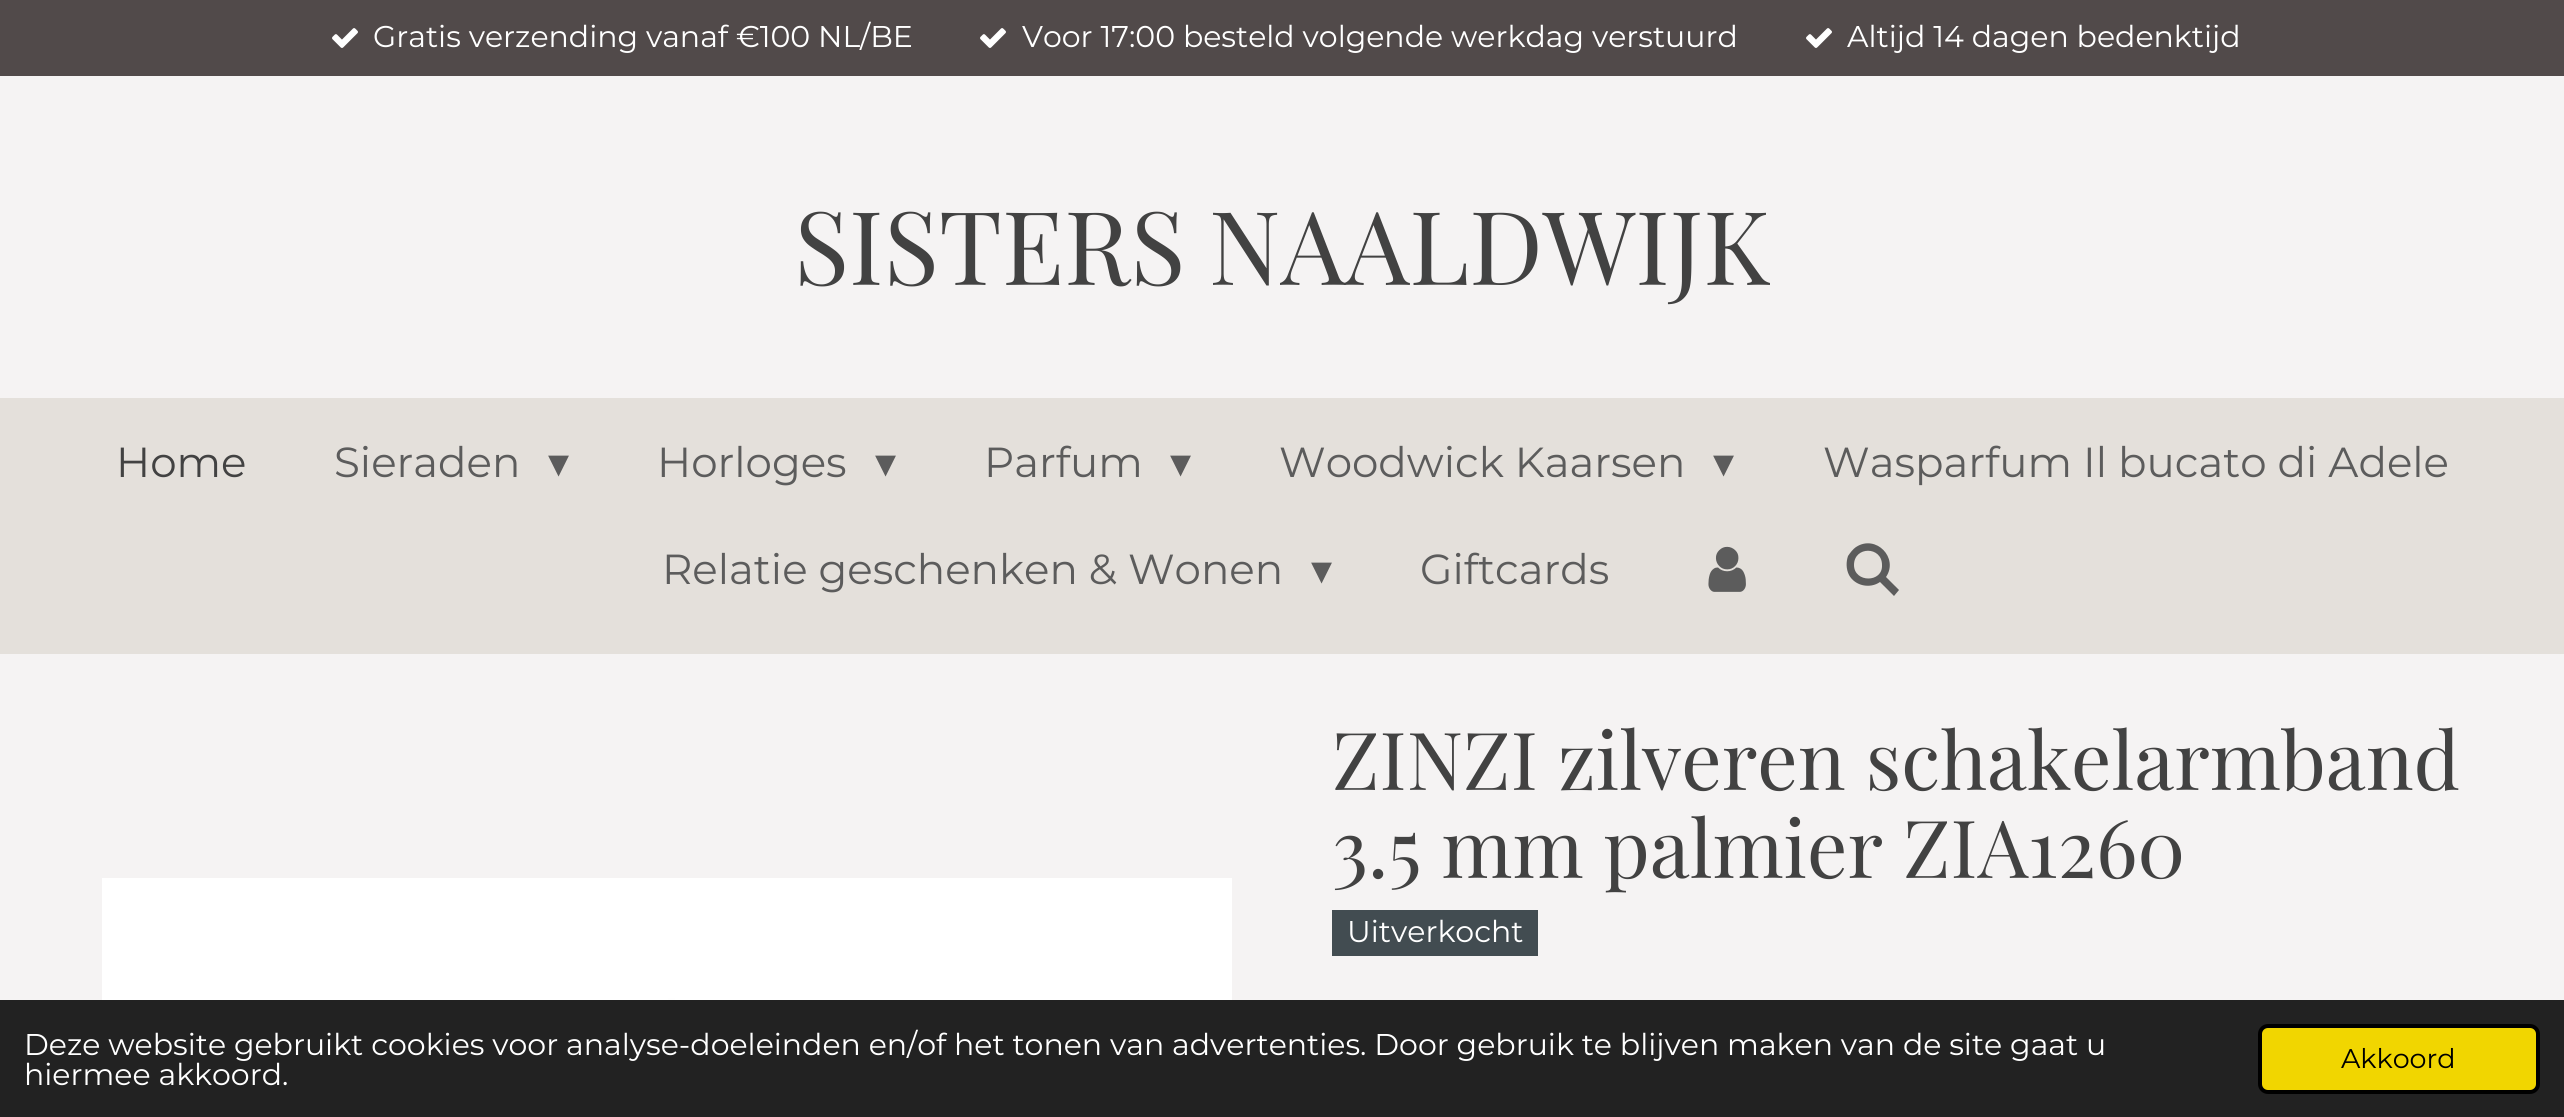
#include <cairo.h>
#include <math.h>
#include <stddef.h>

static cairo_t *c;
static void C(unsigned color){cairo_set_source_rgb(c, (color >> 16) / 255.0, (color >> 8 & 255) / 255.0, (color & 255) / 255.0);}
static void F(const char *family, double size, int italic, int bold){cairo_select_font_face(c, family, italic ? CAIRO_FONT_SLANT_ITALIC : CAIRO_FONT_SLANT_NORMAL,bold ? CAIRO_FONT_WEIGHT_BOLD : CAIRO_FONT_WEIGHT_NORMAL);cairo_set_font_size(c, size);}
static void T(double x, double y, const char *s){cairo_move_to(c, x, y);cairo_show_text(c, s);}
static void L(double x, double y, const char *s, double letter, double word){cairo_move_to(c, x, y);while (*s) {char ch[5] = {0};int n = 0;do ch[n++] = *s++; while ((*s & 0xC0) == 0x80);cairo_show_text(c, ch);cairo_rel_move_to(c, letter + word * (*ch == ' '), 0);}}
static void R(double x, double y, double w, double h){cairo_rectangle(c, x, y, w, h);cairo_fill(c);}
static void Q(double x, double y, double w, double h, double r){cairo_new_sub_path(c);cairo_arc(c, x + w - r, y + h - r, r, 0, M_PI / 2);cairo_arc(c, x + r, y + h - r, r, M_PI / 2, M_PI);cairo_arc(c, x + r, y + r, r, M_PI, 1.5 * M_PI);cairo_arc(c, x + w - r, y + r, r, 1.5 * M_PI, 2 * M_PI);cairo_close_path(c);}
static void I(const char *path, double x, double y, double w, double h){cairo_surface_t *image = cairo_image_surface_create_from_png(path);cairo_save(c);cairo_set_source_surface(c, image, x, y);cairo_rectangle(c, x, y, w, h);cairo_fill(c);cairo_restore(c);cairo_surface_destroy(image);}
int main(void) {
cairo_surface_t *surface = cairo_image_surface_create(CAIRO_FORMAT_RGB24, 2564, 1117);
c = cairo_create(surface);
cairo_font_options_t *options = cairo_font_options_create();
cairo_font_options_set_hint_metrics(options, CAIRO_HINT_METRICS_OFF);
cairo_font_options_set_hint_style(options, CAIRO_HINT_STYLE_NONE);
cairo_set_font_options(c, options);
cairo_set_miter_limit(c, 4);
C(0xf5f3f3);
cairo_paint(c);
C(0x514a4a);
R(0,0,2564,76);
I("1.png",332,28,26,20);
F("Montserrat",30,0,0);
C(0xffffff);
T(373,47,"Gratis verzending vanaf €100 NL/BE");
I("1.png",980,28,26,20);
T(1022,47,"Voor 17:00 besteld volgende werkdag verstuurd");
I("1.png",1806,28,26,20);
T(1847,47,"Altijd 14 dagen bedenktijd");
F("Playfair Display",102,0,0);
C(0x424242);
L(794,285,"SISTERS NAALDWIJK",0,-2);
C(0xe4e0db);
R(0,398,2564,256);
F("Montserrat",42,0,0);
C(0x424242);
T(116,477,"Home");
C(0x5c5c5c);
T(334,477,"Sieraden");
F("DejaVu Sans",42,0,0);
T(548,477,"▾");
F("Montserrat",42,0,0);
T(657,477,"Horloges");
F("DejaVu Sans",42,0,0);
T(875,477,"▾");
F("Montserrat",42,0,0);
T(984,477,"Parfum");
F("DejaVu Sans",42,0,0);
T(1170,477,"▾");
F("Montserrat",42,0,0);
T(1279,477,"Woodwick Kaarsen");
F("DejaVu Sans",42,0,0);
T(1713,477,"▾");
F("Montserrat",42,0,0);
T(1823,477,"Wasparfum Il bucato di Adele");
T(662,584,"Relatie geschenken & Wonen");
F("DejaVu Sans",42,0,0);
T(1311,584,"▾");
F("Montserrat",42,0,0);
T(1420,584,"Giftcards");
I("2.png",1708,546,38,46);
cairo_new_path(c);
cairo_move_to(c,1886,577);
cairo_line_to(c,1899,590);
cairo_line_to(c,1894,596);
cairo_line_to(c,1880,582);
cairo_curve_to(c,1870,589,1855,586,1849,575);
cairo_curve_to(c,1846,569,1846,562,1848,556);
cairo_curve_to(c,1850,553,1853,549,1856,547);
cairo_curve_to(c,1876,534,1899,558,1886,577);
cairo_close_path(c);
cairo_move_to(c,1882,565);
cairo_curve_to(c,1882,546,1854,546,1854,565);
cairo_curve_to(c,1854,583,1883,583,1882,565);
cairo_close_path(c);
cairo_fill(c);
I("3.png",102,878,1130,122);
F("Playfair Display",80,0,0);
C(0x424242);
T(1332,790,"ZINZI zilveren schakelarmband");
T(1332,878,"3.5 mm palmier ZIA1260");
C(0x424c51);
R(1332,910,206,46);
F("Montserrat",30,0,0);
C(0xffffff);
T(1347,942,"Uitverkocht");
C(0x222222);
R(0,1000,2564,117);
C(0xffffff);
T(24,1055,"Deze website gebruikt cookies voor analyse-doeleinden en/of het tonen van advertenties. Door gebruik te blijven maken van de site gaat u");
T(24,1085,"hiermee akkoord.");
C(0xf1d600);
Q(2260,1026,278,66,8);
cairo_fill_preserve(c);
C(0x000000);
cairo_set_line_width(c,4);
cairo_stroke(c);
F("Montserrat",27,0,0);
T(2341,1068,"Akkoord");
cairo_surface_write_to_png(surface, "o.png");
cairo_font_options_destroy(options);
cairo_destroy(c);
cairo_surface_destroy(surface);
return 0;
}
